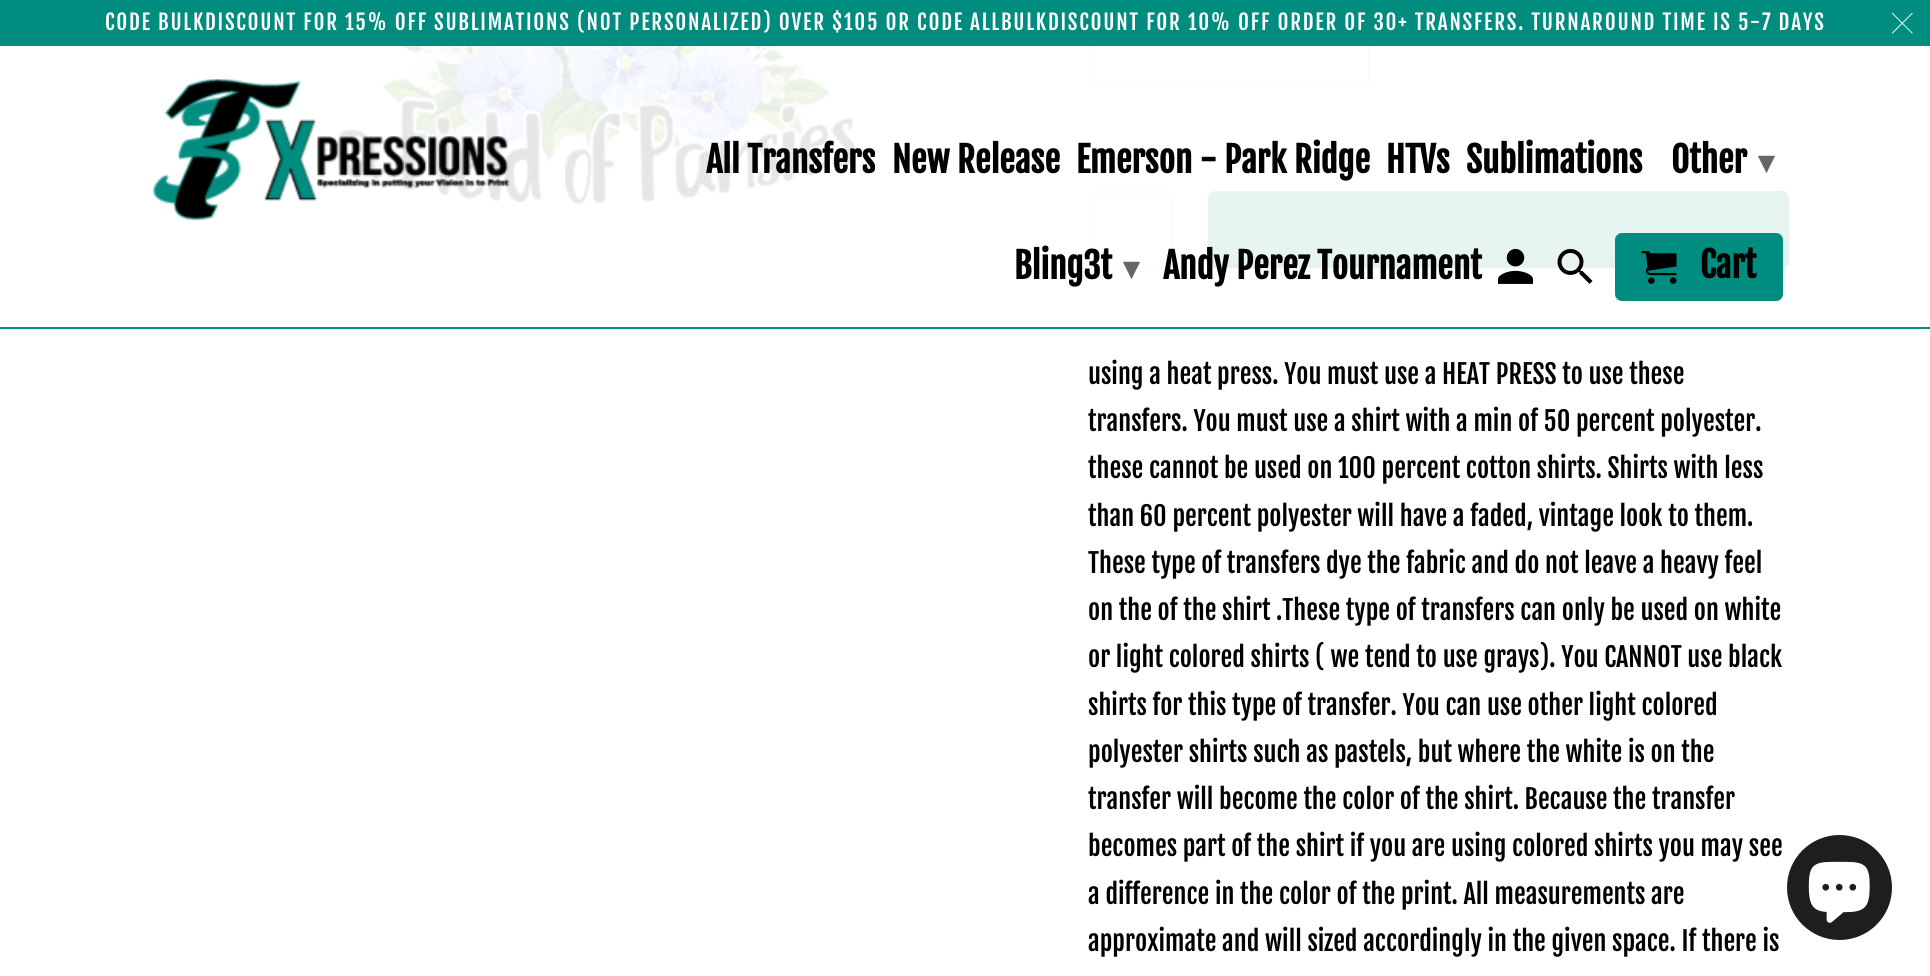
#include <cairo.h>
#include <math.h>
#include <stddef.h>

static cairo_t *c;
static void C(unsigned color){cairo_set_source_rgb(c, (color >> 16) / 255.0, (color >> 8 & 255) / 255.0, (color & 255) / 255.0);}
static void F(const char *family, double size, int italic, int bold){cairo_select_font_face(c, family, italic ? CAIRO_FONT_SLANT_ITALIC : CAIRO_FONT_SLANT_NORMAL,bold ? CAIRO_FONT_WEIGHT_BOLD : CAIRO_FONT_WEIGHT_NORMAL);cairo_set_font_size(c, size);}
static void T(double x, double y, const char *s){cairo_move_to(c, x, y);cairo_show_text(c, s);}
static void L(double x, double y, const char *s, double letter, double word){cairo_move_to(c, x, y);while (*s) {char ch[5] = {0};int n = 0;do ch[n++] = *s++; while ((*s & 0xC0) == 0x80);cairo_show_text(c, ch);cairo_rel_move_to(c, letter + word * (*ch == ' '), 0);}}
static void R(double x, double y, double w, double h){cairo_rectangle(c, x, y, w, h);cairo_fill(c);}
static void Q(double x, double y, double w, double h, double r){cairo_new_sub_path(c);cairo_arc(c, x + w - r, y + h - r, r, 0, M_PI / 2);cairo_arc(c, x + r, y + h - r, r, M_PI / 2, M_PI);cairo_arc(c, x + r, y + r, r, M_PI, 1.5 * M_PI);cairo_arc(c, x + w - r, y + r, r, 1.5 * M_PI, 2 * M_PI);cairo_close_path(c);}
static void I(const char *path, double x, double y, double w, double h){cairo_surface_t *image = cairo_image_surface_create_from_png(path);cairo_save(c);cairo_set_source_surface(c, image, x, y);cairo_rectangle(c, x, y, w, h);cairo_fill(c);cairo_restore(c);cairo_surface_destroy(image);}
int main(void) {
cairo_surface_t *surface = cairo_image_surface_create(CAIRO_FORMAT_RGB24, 1930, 976);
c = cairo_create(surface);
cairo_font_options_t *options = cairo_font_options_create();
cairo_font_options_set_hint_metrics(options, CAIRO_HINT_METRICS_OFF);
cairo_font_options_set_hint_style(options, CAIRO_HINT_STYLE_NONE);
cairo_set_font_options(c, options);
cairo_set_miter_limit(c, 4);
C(0xffffff);
cairo_paint(c);
I("6.png",338,46,519,159);
cairo_rectangle(c,1090,20,279,63);
C(0xe2e2e2);
cairo_stroke(c);
Q(1090,192,82,75,6);
C(0xdce0e0);
cairo_stroke(c);
C(0x008d7f);
Q(1208,191,581,77,7);
cairo_fill(c);
cairo_set_source_rgba(c,0,0,0,0.1);
cairo_new_path(c);
cairo_move_to(c,1208,256);
cairo_line_to(c,1208,261);
cairo_curve_to(c,1208,265,1211,268,1215,268);
cairo_line_to(c,1782,268);
cairo_curve_to(c,1786,268,1789,265,1789,261);
cairo_line_to(c,1789,198);
cairo_curve_to(c,1789,197,1789,195,1788,194);
cairo_line_to(c,1788,256);
cairo_curve_to(c,1788,259,1785,262,1782,262);
cairo_line_to(c,1214,262);
cairo_curve_to(c,1211,262,1208,259,1208,256);
cairo_close_path(c);
cairo_fill(c);
cairo_set_source_rgba(c,1,1,1,0.9);
R(338,46,1451,222);
C(0x008d7f);
R(0,327,1930,2);
R(0,0,1930,46);
F("Fjalla One",21,0,0);
C(0xffffff);
L(105,30,"CODE BULKDISCOUNT FOR 15% OFF SUBLIMATIONS (NOT PERSONALIZED) OVER $105 OR CODE ALLBULKDISCOUNT FOR 10% OFF ORDER OF 30+ TRANSFERS. TURNAROUND TIME IS 5-7 DAYS",1.75,0);
I("1.png",1891,12,22,22);
I("2.png",152,79,358,142);
F("Fjalla One",35,0,1);
C(0x000000);
T(706,173,"All Transfers");
T(892,173,"New Release");
T(1076,173,"Emerson - Park Ridge");
T(1386,173,"HTVs");
T(1466,173,"Sublimations");
T(1671,173,"Other");
F("DejaVu Sans",32,0,1);
C(0x666666);
T(1758,173,"▾");
F("Fjalla One",35,0,1);
C(0x000000);
T(1014,279,"Bling3t");
F("DejaVu Sans",32,0,1);
C(0x666666);
T(1123,279,"▾");
F("Fjalla One",35,0,1);
C(0x000000);
T(1163,279,"Andy Perez Tournament");
I("3.png",1498,248,35,36);
I("4.png",1557,248,36,36);
C(0x008d7f);
Q(1615,233,168,68,7);
cairo_fill(c);
I("5.png",1641,251,36,33);
C(0x000000);
T(1700,278,"Cart");
F("Fjalla One",26.25,0,0);
T(1088,384,"using a heat press. You must use a HEAT PRESS to use these");
T(1088,431,"transfers. You must use a shirt with a min of 50 percent polyester.");
T(1088,478,"these cannot be used on 100 percent cotton shirts. Shirts with less");
T(1088,526,"than 60 percent polyester will have a faded, vintage look to them.");
T(1088,573,"These type of transfers dye the fabric and do not leave a heavy feel");
T(1088,620,"on the of the shirt .These type of transfers can only be used on white");
T(1088,667,"or light colored shirts ( we tend to use grays). You CANNOT use black");
T(1088,715,"shirts for this type of transfer. You can use other light colored");
T(1088,762,"polyester shirts such as pastels, but where the white is on the");
T(1088,809,"transfer will become the color of the shirt. Because the transfer");
T(1088,856,"becomes part of the shirt if you are using colored shirts you may see");
T(1088,904,"a difference in the color of the print. All measurements are");
T(1088,951,"approximate and will sized accordingly in the given space. If there is");
C(0x1e1e1e);
cairo_new_path(c);
cairo_arc(c,1839.5,887.5,52.5,0,2 * M_PI);
cairo_fill(c);
I("7.png",1808,861,62,62);
cairo_surface_write_to_png(surface, "o.png");
cairo_font_options_destroy(options);
cairo_destroy(c);
cairo_surface_destroy(surface);
return 0;
}
